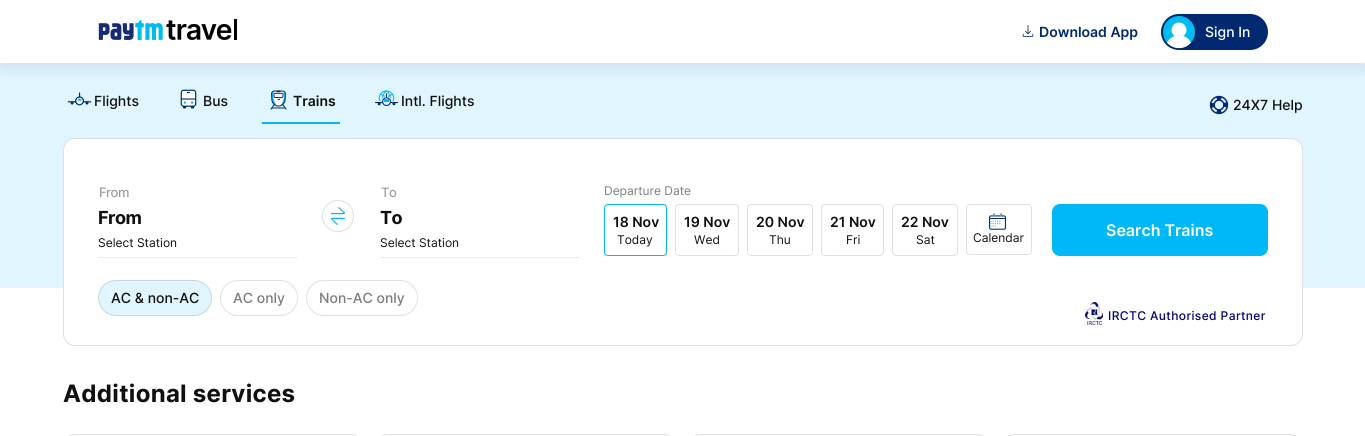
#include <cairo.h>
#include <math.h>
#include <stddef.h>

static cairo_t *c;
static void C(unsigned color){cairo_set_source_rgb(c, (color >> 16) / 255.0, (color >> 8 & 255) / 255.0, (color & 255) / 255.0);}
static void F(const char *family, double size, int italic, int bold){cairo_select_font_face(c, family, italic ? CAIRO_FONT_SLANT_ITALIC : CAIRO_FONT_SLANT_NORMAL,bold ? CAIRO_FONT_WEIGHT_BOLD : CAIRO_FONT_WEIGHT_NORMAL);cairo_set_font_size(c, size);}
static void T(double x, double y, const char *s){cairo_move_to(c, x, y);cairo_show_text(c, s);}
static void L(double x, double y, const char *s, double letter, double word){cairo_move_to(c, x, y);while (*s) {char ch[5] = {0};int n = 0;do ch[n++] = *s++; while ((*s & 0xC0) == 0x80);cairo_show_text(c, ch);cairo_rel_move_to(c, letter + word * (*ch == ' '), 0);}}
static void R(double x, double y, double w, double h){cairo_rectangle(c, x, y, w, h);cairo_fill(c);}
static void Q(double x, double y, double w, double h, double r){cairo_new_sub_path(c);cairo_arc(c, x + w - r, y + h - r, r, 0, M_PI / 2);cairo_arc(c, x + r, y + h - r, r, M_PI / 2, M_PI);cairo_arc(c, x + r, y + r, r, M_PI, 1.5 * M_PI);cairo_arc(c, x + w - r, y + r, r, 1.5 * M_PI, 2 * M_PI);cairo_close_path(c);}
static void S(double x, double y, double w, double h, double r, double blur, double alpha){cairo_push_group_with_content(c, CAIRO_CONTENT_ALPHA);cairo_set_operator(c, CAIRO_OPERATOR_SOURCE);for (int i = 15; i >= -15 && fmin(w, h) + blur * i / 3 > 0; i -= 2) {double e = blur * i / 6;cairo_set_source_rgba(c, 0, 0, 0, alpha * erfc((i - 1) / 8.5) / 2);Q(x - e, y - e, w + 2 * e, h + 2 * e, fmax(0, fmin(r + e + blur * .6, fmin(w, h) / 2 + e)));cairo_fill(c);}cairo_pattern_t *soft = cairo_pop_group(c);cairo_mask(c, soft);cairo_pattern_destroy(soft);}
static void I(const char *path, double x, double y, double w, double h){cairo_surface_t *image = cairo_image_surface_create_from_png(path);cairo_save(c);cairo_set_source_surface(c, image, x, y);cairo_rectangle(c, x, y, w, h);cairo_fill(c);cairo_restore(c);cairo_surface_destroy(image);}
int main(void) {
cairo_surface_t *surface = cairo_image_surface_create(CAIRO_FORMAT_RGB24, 1365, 436);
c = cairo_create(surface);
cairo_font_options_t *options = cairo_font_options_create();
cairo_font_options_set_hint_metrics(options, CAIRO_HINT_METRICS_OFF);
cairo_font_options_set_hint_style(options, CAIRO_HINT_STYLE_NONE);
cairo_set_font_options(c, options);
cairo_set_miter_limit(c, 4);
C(0xffffff);
cairo_paint(c);
C(0xe0f5fd);
R(0,63,1365,225);
I("3.png",67,92,25,14);
I("5.png",181,90,15,17);
I("6.png",183,101,11,3);
I("4.png",180,89,17,20);
I("7.png",270,90,17,20);
I("8.png",378,90,17,12);
I("9.png",374,93,25,13);
I("10.png",1209,95,20,20);
cairo_save(c);
cairo_rectangle(c,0,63,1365,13);
cairo_clip(c);
C(0x002970);
S(0,5,1365,63,0,10,.1);
cairo_restore(c);
I("1.png",98,19,139,21);
I("2.png",1022,25,12,12);
F("Inter SemiBold",14,0,0);
C(0x002970);
T(1039,37,"Download App");
Q(1161,14,107,36,18);
cairo_fill(c);
C(0x00baf2);
cairo_arc(c,1179,32,16,0,2 * M_PI);
cairo_fill(c);
C(0xffffff);
cairo_arc(c,1179,30,7.5,0,2 * M_PI);
cairo_fill(c);
cairo_new_path(c);
cairo_move_to(c,1167,42.5);
cairo_curve_to(c,1172,33,1186,33,1191,42.5);
cairo_curve_to(c,1185,50,1173,50,1167,42.5);
cairo_close_path(c);
cairo_fill(c);
F("Inter Medium",14,0,0);
T(1205,37,"Sign In");
C(0x101010);
T(94,106,"Flights");
T(203,106,"Bus");
F("Inter SemiBold",14,0,0);
T(293,106,"Trains");
C(0x00b8f5);
R(262,122,78,2);
R(384,99,5,3);
F("Inter Medium",14,0,0);
C(0x101010);
T(401,106,"Intl. Flights");
T(1233,110,"24X7 Help");
C(0xffffff);
Q(63,138,1240,208,12);
cairo_fill(c);
Q(63.5,138.5,1239,207,11.5);
cairo_set_source_rgba(c,0.059,0.059,0.059,0.13);
cairo_set_line_width(c,1);
cairo_stroke(c);
F("Inter Medium",13,0,0);
C(0x9e9e9e);
L(99,197,"From",-.5,0);
C(0xebebeb);
R(98,257,200,1);
F("Inter",18,0,1);
C(0x101010);
L(98,224,"From",-.5,0);
F("Inter",12,0,0);
T(98,247,"Select Station");
I("11.png",322,200,32,32);
F("Inter Medium",13,0,0);
C(0x9e9e9e);
L(381,197,"To",-.5,0);
C(0xebebeb);
R(380,257,200,1);
F("Inter",18,0,1);
C(0x101010);
L(380,224,"To",-.5,0);
F("Inter",12,0,0);
T(380,247,"Select Station");
C(0x7d7d7d);
T(604,195,"Departure Date");
Q(604.5,204.5,62,51,3.5);
C(0x00b8f5);
cairo_stroke(c);
F("Inter SemiBold",14,0,0);
C(0x101010);
T(613,227,"18 Nov");
F("Inter",12,0,0);
T(617,244,"Today");
Q(675.5,204.5,63,51,3.5);
C(0xe0e0e0);
cairo_stroke(c);
F("Inter SemiBold",14,0,0);
C(0x101010);
T(684,227,"19 Nov");
F("Inter",12,0,0);
T(694,244,"Wed");
Q(747.5,204.5,65,51,3.5);
C(0xe0e0e0);
cairo_stroke(c);
F("Inter SemiBold",14,0,0);
C(0x101010);
T(756,227,"20 Nov");
F("Inter",12,0,0);
T(769,244,"Thu");
Q(821.5,204.5,62,51,3.5);
C(0xe0e0e0);
cairo_stroke(c);
F("Inter SemiBold",14,0,0);
C(0x101010);
T(830,227,"21 Nov");
F("Inter",12,0,0);
T(846,244,"Fri");
Q(892.5,204.5,65,51,3.5);
C(0xe0e0e0);
cairo_stroke(c);
F("Inter SemiBold",14,0,0);
C(0x101010);
T(901,227,"22 Nov");
F("Inter",12,0,0);
T(916,244,"Sat");
Q(966.5,204.5,65,50,3.5);
C(0xe0e0e0);
cairo_stroke(c);
I("12.png",989,213,17,17);
C(0x101010);
T(973,242,"Calendar");
C(0x00b8f5);
Q(1052.5,204.5,215,51,7.5);
cairo_fill_preserve(c);
cairo_stroke(c);
F("Inter SemiBold",16,0,0);
C(0xffffff);
T(1106,236,"Search Trains");
C(0xe0f5fd);
Q(98,280,114,36,18);
cairo_fill(c);
Q(98.5,280.5,113,35,17.5);
cairo_set_source_rgba(c,0.063,0.063,0.063,0.13);
cairo_stroke(c);
F("Inter Medium",14,0,0);
C(0x101010);
T(111,303,"AC & non-AC");
Q(220.5,280.5,77,35,17.5);
C(0xe0e0e0);
cairo_stroke(c);
C(0x7d7d7d);
T(233,303,"AC only");
Q(306.5,280.5,111,35,17.5);
C(0xe0e0e0);
cairo_stroke(c);
C(0x7d7d7d);
T(319,303,"Non-AC only");
I("13.png",1085,302,18,23);
F("Inter Medium",12,0,0);
C(0x000078);
L(1108,320,"IRCTC Authorised Partner",.4,0);
F("Inter",24,0,1);
C(0x101010);
L(63,402,"Additional services",.3,0);
Q(63.5,434.5,299,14,11.5);
C(0xe0e0e0);
cairo_stroke(c);
Q(376.5,434.5,299,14,11.5);
cairo_stroke(c);
Q(689.5,434.5,299,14,11.5);
cairo_stroke(c);
Q(1002.5,434.5,299,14,11.5);
cairo_stroke(c);
cairo_surface_write_to_png(surface, "o.png");
cairo_font_options_destroy(options);
cairo_destroy(c);
cairo_surface_destroy(surface);
return 0;
}
